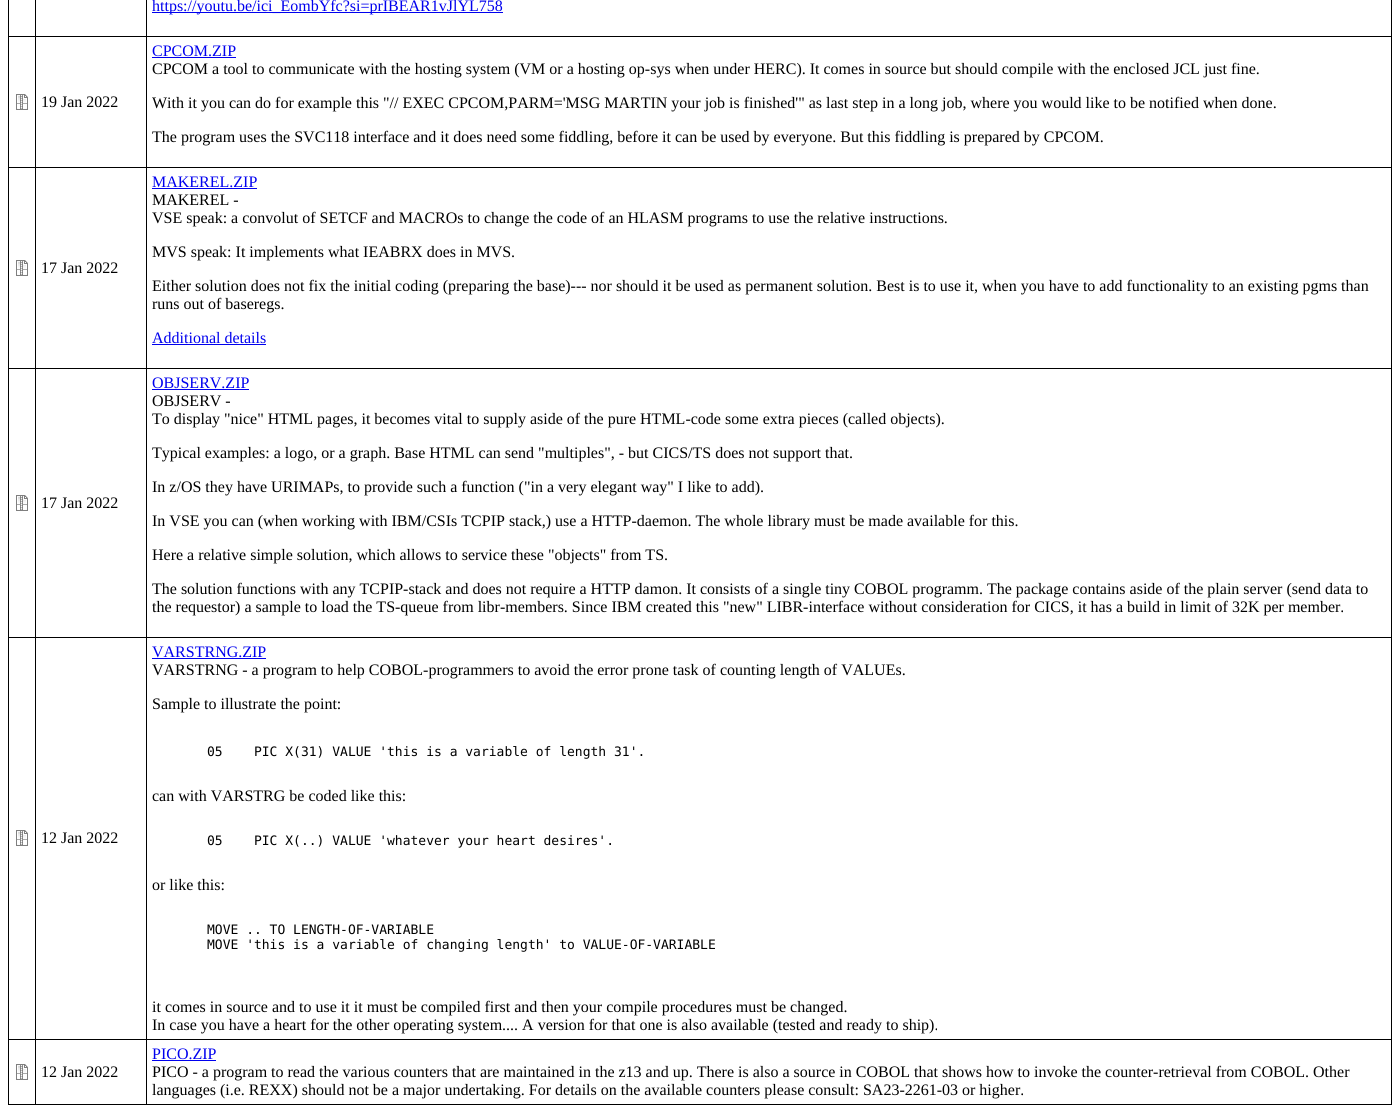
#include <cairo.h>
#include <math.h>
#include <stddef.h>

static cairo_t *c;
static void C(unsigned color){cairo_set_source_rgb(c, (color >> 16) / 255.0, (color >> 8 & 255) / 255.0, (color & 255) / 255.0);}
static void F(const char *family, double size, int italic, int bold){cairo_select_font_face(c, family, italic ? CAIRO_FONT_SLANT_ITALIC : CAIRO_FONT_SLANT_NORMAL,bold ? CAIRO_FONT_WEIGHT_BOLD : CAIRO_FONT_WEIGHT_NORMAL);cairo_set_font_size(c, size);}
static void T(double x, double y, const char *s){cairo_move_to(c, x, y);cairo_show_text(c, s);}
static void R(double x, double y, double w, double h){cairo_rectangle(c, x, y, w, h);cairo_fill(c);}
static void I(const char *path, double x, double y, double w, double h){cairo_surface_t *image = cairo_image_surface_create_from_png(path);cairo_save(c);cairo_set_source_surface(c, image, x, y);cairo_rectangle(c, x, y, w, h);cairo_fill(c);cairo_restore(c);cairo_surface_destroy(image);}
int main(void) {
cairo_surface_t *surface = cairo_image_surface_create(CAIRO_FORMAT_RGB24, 1400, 1113);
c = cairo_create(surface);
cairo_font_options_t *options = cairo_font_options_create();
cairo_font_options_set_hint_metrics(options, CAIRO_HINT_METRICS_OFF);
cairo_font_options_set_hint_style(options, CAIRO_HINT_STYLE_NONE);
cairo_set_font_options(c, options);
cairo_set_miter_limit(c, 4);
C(0xffffff);
cairo_paint(c);
C(0x000000);
R(1391,0,1,1105);
R(8,1104,1384,1);
R(8,0,1,1105);
C(0x0000ee);
R(152,12,351,1);
F("Liberation Serif",16,0,0);
T(152,11,"https://youtu.be/ici_EombYfc?si=prIBEAR1vJlYL758");
C(0x000000);
R(8,36,1384,1);
I("1.png",16,94,12,16);
T(41,107,"19 Jan 2022");
C(0x0000ee);
T(152,56,"CPCOM.ZIP");
R(152,57,84,1);
C(0x000000);
T(152,74,"CPCOM a tool to communicate with the hosting system (VM or a hosting op-sys when under HERC). It comes in source but should compile with the enclosed JCL just fine.");
T(152,108,"With it you can do for example this \"// EXEC CPCOM,PARM='MSG MARTIN your job is finished'\" as last step in a long job, where you would like to be notified when done.");
T(152,142,"The program uses the SVC118 interface and it does need some fiddling, before it can be used by everyone. But this fiddling is prepared by CPCOM.");
R(8,167,1384,1);
I("1.png",16,260,12,16);
T(41,273,"17 Jan 2022");
C(0x0000ee);
T(152,187,"MAKEREL.ZIP");
R(152,188,105,1);
C(0x000000);
T(152,205,"MAKEREL -");
T(152,223,"VSE speak: a convolut of SETCF and MACROs to change the code of an HLASM programs to use the relative instructions.");
T(152,257,"MVS speak: It implements what IEABRX does in MVS.");
T(152,291,"Either solution does not fix the initial coding (preparing the base)--- nor should it be used as permanent solution. Best is to use it, when you have to add functionality to an existing pgms than");
T(152,309,"runs out of baseregs.");
C(0x0000ee);
T(152,343,"Additional details");
R(152,344,114,1);
C(0x000000);
R(8,368,1384,1);
I("1.png",16,495,12,16);
T(41,508,"17 Jan 2022");
C(0x0000ee);
T(152,388,"OBJSERV.ZIP");
R(152,389,97,1);
C(0x000000);
T(152,406,"OBJSERV -");
T(152,424,"To display \"nice\" HTML pages, it becomes vital to supply aside of the pure HTML-code some extra pieces (called objects).");
T(152,458,"Typical examples: a logo, or a graph. Base HTML can send \"multiples\", - but CICS/TS does not support that.");
T(152,492,"In z/OS they have URIMAPs, to provide such a function (\"in a very elegant way\" I like to add).");
T(152,526,"In VSE you can (when working with IBM/CSIs TCPIP stack,) use a HTTP-daemon. The whole library must be made available for this.");
T(152,560,"Here a relative simple solution, which allows to service these \"objects\" from TS.");
T(152,594,"The solution functions with any TCPIP-stack and does not require a HTTP damon. It consists of a single tiny COBOL programm. The package contains aside of the plain server (send data to");
T(152,612,"the requestor) a sample to load the TS-queue from libr-members. Since IBM created this \"new\" LIBR-interface without consideration for CICS, it has a build in limit of 32K per member.");
R(8,637,1384,1);
I("1.png",16,830,12,16);
T(41,843,"12 Jan 2022");
C(0x0000ee);
T(152,657,"VARSTRNG.ZIP");
R(152,658,114,1);
C(0x000000);
T(152,675,"VARSTRNG - a program to help COBOL-programmers to avoid the error prone task of counting length of VALUEs.");
T(152,709,"Sample to illustrate the point:");
F("DejaVu Sans Mono",13,0,0);
T(207,756,"05    PIC X(31) VALUE 'this is a variable of length 31'.");
F("Liberation Serif",16,0,0);
T(152,801,"can with VARSTRG be coded like this:");
F("DejaVu Sans Mono",13,0,0);
T(207,845,"05    PIC X(..) VALUE 'whatever your heart desires'.");
F("Liberation Serif",16,0,0);
T(152,890,"or like this:");
F("DejaVu Sans Mono",13,0,0);
T(207,934,"MOVE .. TO LENGTH-OF-VARIABLE");
T(207,949,"MOVE 'this is a variable of changing length' to VALUE-OF-VARIABLE");
F("Liberation Serif",16,0,0);
T(152,1012,"it comes in source and to use it it must be compiled first and then your compile procedures must be changed.");
T(152,1030,"In case you have a heart for the other operating system.... A version for that one is also available (tested and ready to ship).");
R(8,1039,1384,1);
I("1.png",16,1064,12,16);
R(35,0,1,1105);
T(41,1077,"12 Jan 2022");
R(146,0,1,1105);
C(0x0000ee);
T(152,1059,"PICO.ZIP");
R(152,1060,64,1);
C(0x000000);
T(152,1077,"PICO - a program to read the various counters that are maintained in the z13 and up. There is also a source in COBOL that shows how to invoke the counter-retrieval from COBOL. Other");
T(152,1095,"languages (i.e. REXX) should not be a major undertaking. For details on the available counters please consult: SA23-2261-03 or higher.");
cairo_surface_write_to_png(surface, "o.png");
cairo_font_options_destroy(options);
cairo_destroy(c);
cairo_surface_destroy(surface);
return 0;
}
